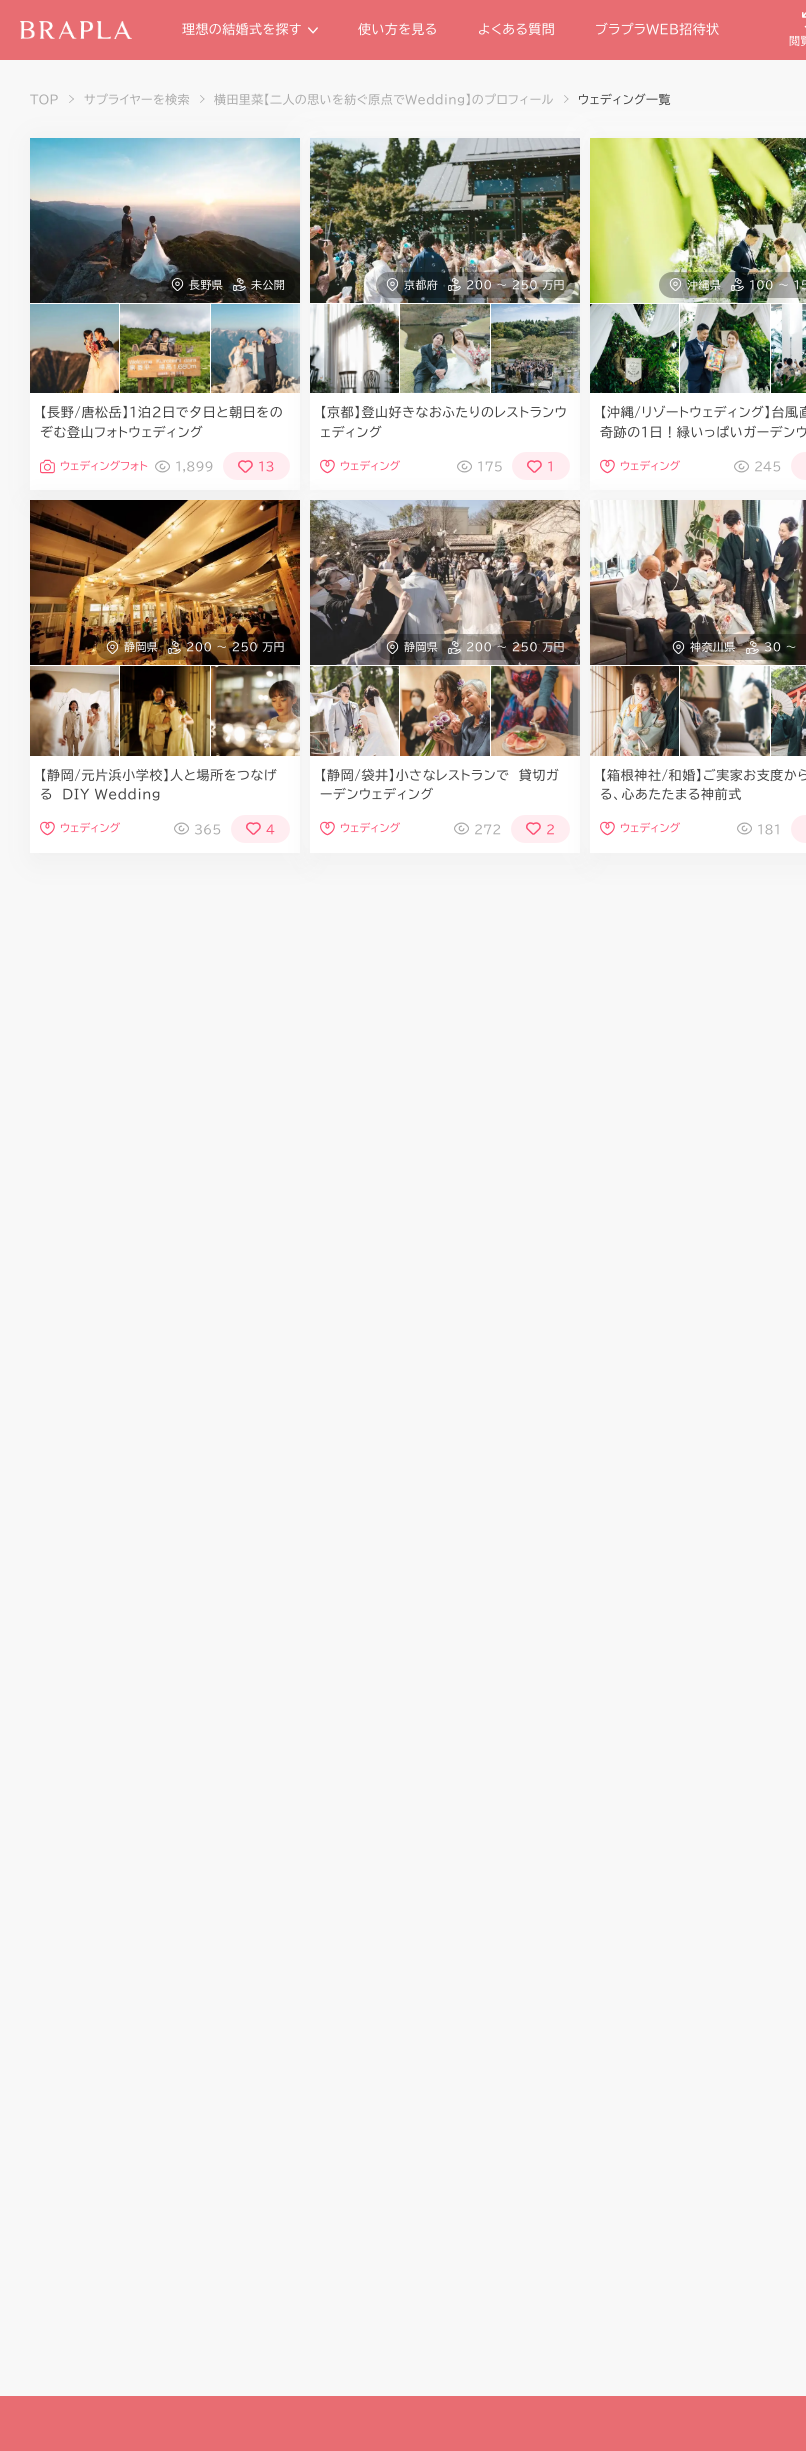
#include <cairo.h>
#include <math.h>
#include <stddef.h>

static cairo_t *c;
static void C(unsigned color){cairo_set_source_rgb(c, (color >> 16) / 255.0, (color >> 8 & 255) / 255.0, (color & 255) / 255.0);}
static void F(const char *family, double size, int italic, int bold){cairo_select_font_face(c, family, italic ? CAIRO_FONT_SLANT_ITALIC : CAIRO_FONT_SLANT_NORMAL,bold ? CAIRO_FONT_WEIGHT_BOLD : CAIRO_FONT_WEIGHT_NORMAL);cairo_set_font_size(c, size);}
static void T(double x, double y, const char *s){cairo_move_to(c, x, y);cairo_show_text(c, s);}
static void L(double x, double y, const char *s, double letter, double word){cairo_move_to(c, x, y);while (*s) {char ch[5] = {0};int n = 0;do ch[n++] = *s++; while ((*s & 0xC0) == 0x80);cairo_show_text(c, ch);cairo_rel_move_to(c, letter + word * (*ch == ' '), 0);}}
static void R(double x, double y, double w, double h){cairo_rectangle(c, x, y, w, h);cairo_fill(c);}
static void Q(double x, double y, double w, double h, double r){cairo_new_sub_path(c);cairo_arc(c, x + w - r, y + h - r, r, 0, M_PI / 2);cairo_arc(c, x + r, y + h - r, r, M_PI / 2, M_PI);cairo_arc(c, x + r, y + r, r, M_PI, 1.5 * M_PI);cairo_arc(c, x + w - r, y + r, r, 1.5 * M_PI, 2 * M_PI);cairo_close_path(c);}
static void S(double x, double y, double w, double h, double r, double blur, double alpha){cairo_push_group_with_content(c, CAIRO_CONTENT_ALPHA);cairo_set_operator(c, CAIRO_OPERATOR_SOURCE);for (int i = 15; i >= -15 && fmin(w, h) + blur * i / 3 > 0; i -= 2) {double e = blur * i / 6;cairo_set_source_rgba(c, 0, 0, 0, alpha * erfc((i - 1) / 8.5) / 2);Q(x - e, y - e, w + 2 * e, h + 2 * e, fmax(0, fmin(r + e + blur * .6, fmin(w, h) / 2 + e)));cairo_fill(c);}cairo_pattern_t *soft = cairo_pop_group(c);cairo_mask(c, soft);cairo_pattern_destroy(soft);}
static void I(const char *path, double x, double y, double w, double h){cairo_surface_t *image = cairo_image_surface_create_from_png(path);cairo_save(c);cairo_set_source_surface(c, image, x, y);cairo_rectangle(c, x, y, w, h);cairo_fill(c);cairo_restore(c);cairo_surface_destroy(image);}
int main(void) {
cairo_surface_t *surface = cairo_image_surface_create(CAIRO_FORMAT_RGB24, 806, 2451);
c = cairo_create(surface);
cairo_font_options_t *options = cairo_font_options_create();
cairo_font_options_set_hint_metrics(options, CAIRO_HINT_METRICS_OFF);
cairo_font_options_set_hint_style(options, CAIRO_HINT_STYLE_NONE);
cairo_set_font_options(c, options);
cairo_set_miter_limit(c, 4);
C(0xf8f8f8);
cairo_paint(c);
C(0xe86d72);
R(0,0,806,60);
I("1.png",20,21,112,18);
F("BIZ UDPGothic",13,0,0);
C(0xffffff);
L(182,34,"理想の結婚式を探す",.4,0);
I("2.png",308,27,10,7);
L(358,34,"使い方を見る",.4,0);
L(478,34,"よくある質問",.4,0);
L(595,34,"ブラプラWEB招待状",.4,0);
I("3.png",802,12,4,16);
F("BIZ UDPGothic",11,0,0);
L(789,45,"閲覧",.4,0);
C(0xededed);
S(35,143,270,352,0,14.5,1);
F("BIZ UDPGothic",12,0,0);
C(0xaaaaaa);
L(30,104,"TOP",.4,0);
cairo_new_path(c);
cairo_move_to(c,69.5,95);
cairo_line_to(c,74,99);
cairo_line_to(c,73.5,99.5);
cairo_line_to(c,69,95.5);
cairo_close_path(c);
cairo_fill(c);
cairo_new_path(c);
cairo_move_to(c,73.5,98.5);
cairo_line_to(c,74,99);
cairo_line_to(c,69.5,103);
cairo_line_to(c,69,102.5);
cairo_close_path(c);
cairo_fill(c);
L(84,104,"サプライヤーを検索",.4,0);
cairo_new_path(c);
cairo_move_to(c,200.5,95);
cairo_line_to(c,204.5,99);
cairo_line_to(c,204,99.5);
cairo_line_to(c,200,95.5);
cairo_close_path(c);
cairo_fill(c);
cairo_new_path(c);
cairo_move_to(c,204,98.5);
cairo_line_to(c,204.5,99);
cairo_line_to(c,200.5,103);
cairo_line_to(c,200,102.5);
cairo_close_path(c);
cairo_fill(c);
C(0xffffff);
R(30,303,270,187);
I("9.png",211,304,89,89);
C(0xffffff);
S(305,133,270,352,0,14.5,1);
C(0xededed);
S(315,143,270,352,0,14.5,1);
C(0xffffff);
R(310,303,270,187);
I("18.png",491,304,89,89);
C(0xffffff);
S(585,133,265,352,0,14.5,1);
C(0xededed);
S(595,143,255,352,0,14.5,1);
C(0xaaaaaa);
L(214,104,"横田里菜【二人の思いを紡ぐ原点でWedding】のプロフィール",.4,0);
cairo_new_path(c);
cairo_move_to(c,564.5,95);
cairo_line_to(c,568.5,99);
cairo_line_to(c,568,99.5);
cairo_line_to(c,564,95.5);
cairo_close_path(c);
cairo_fill(c);
cairo_new_path(c);
cairo_move_to(c,568,98.5);
cairo_line_to(c,568.5,99);
cairo_line_to(c,564.5,103);
cairo_line_to(c,564,102.5);
cairo_close_path(c);
cairo_fill(c);
C(0x404040);
L(578,104,"ウェディング一覧",.4,0);
I("4.png",30,138,270,165);
cairo_set_source_rgba(c,0,0,0,0.3);
Q(161,272,134,26,13);
cairo_fill(c);
I("5.png",171,278,13,13);
F("BIZ UDPGothic",11,0,0);
C(0xffffff);
L(189,289,"長野県",.4,0);
I("6.png",233,278,13,13);
L(251,289,"未公開",.4,0);
I("7.png",30,304,89,89);
I("8.png",120,304,90,89);
F("BIZ UDPGothic",13,0,0);
C(0x404040);
L(40,417,"【長野/唐松岳】1泊2日で夕日と朝日をの",.6,0);
L(40,437,"ぞむ登山フォトウェディング",.6,0);
C(0xededed);
S(35,505,270,353,0,14.5,1);
I("10.png",40,459,15,15);
F("BIZ UDPGothic",11,0,0);
C(0xfd4f73);
T(60,470,"ウェディングフォト");
I("11.png",155,460,15,13);
F("BIZ UDPGothic",12,0,0);
C(0xaaaaaa);
T(175,471,"1,899");
C(0xffffff);
R(590,303,216,187);
R(30,665,270,188);
I("31.png",211,666,89,90);
C(0xffffff);
S(305,495,270,353,0,14.5,1);
C(0xededed);
S(315,505,270,353,0,14.5,1);
C(0xffedf1);
Q(223,452,67,28,14);
cairo_fill(c);
I("12.png",238,460,15,13);
C(0xfd4f73);
T(258,471,"13");
I("13.png",310,138,270,165);
cairo_set_source_rgba(c,0,0,0,0.3);
Q(376,272,199,26,13);
cairo_fill(c);
I("14.png",386,278,13,13);
F("BIZ UDPGothic",11,0,0);
C(0xffffff);
L(404,289,"京都府",.4,0);
I("15.png",448,278,13,13);
L(466,289,"200 〜 250 万円",.4,0);
I("16.png",310,304,89,89);
I("17.png",400,304,90,89);
F("BIZ UDPGothic",13,0,0);
C(0x404040);
L(320,417,"【京都】登山好きなおふたりのレストランウ",.6,0);
L(320,437,"ェディング",.6,0);
I("19.png",320,459,15,15);
F("BIZ UDPGothic",11,0,0);
C(0xfd4f73);
T(340,470,"ウェディング");
I("11.png",457,460,15,13);
F("BIZ UDPGothic",12,0,0);
C(0xaaaaaa);
T(477,471,"175");
C(0xffffff);
R(310,665,270,188);
I("38.png",491,666,89,90);
C(0xffffff);
S(585,495,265,353,0,14.5,1);
C(0xededed);
S(595,505,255,353,0,14.5,1);
C(0xffedf1);
Q(512,452,58,28,14);
cairo_fill(c);
I("12.png",527,460,15,13);
C(0xfd4f73);
T(547,471,"1");
I("20.png",590,138,216,165);
cairo_set_source_rgba(c,0,0,0,0.3);
Q(659,272,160,26,13);
cairo_fill(c);
I("21.png",669,278,13,13);
F("BIZ UDPGothic",11,0,0);
C(0xffffff);
L(687,289,"沖縄県",.4,0);
I("22.png",731,278,13,13);
L(749,289,"100 〜 15",.4,0);
I("23.png",590,304,89,89);
I("24.png",680,304,90,89);
I("25.png",771,304,35,89);
F("BIZ UDPGothic",13,0,0);
C(0x404040);
L(600,417,"【沖縄/リゾートウェディング】台風直",.6,0);
L(600,437,"奇跡の1日！緑いっぱいガーデンウ",.6,0);
I("19.png",600,459,15,15);
F("BIZ UDPGothic",11,0,0);
C(0xfd4f73);
T(620,470,"ウェディング");
I("11.png",734,460,15,13);
F("BIZ UDPGothic",12,0,0);
C(0xaaaaaa);
T(754,471,"245");
C(0xffedf1);
Q(791,452,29,28,14);
cairo_fill(c);
I("26.png",30,500,270,165);
cairo_set_source_rgba(c,0,0,0,0.3);
Q(96,634,199,26,13);
cairo_fill(c);
I("27.png",106,641,13,13);
F("BIZ UDPGothic",11,0,0);
C(0xffffff);
L(124,651,"静岡県",.4,0);
I("28.png",168,641,13,13);
L(186,651,"200 〜 250 万円",.4,0);
I("29.png",30,666,89,90);
I("30.png",120,666,90,90);
F("BIZ UDPGothic",13,0,0);
C(0x404040);
L(40,780,"【静岡/元片浜小学校】人と場所をつなげ",.6,0);
L(40,799,"る　DIY Wedding",.6,0);
I("19.png",40,821,15,15);
F("BIZ UDPGothic",11,0,0);
C(0xfd4f73);
T(60,832,"ウェディング");
I("11.png",174,822,15,13);
F("BIZ UDPGothic",12,0,0);
C(0xaaaaaa);
T(194,834,"365");
C(0xffedf1);
Q(231,815,59,28,14);
cairo_fill(c);
I("32.png",246,822,15,13);
C(0xfd4f73);
T(266,834,"4");
I("33.png",310,500,270,165);
cairo_set_source_rgba(c,0,0,0,0.3);
Q(376,634,199,26,13);
cairo_fill(c);
I("34.png",386,641,13,13);
F("BIZ UDPGothic",11,0,0);
C(0xffffff);
L(404,651,"静岡県",.4,0);
I("35.png",448,641,13,13);
L(466,651,"200 〜 250 万円",.4,0);
I("36.png",310,666,89,90);
I("37.png",400,666,90,90);
F("BIZ UDPGothic",13,0,0);
C(0x404040);
L(320,780,"【静岡/袋井】小さなレストランで　貸切ガ",.6,0);
L(320,799,"ーデンウェディング",.6,0);
I("19.png",320,821,15,15);
F("BIZ UDPGothic",11,0,0);
C(0xfd4f73);
T(340,832,"ウェディング");
I("11.png",454,822,15,13);
F("BIZ UDPGothic",12,0,0);
C(0xaaaaaa);
T(474,834,"272");
C(0xffedf1);
Q(511,815,59,28,14);
cairo_fill(c);
I("12.png",526,822,15,13);
C(0xfd4f73);
T(546,834,"2");
C(0xffffff);
R(590,665,216,188);
I("39.png",590,500,216,165);
cairo_set_source_rgba(c,0,0,0,0.3);
Q(662,634,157,26,13);
cairo_fill(c);
I("40.png",672,641,13,13);
F("BIZ UDPGothic",11,0,0);
C(0xffffff);
L(690,651,"神奈川県",.4,0);
I("41.png",746,641,13,13);
L(764,651,"30 〜",.4,0);
I("42.png",590,666,89,90);
I("43.png",680,666,90,90);
I("44.png",771,666,35,90);
F("BIZ UDPGothic",13,0,0);
C(0x404040);
L(600,780,"【箱根神社/和婚】ご実家お支度から",.6,0);
L(600,799,"る、心あたたまる神前式",.6,0);
I("19.png",600,821,15,15);
F("BIZ UDPGothic",11,0,0);
C(0xfd4f73);
T(620,832,"ウェディング");
I("11.png",737,822,15,13);
F("BIZ UDPGothic",12,0,0);
C(0xaaaaaa);
T(757,834,"181");
C(0xffedf1);
Q(791,815,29,28,14);
cairo_fill(c);
C(0xe86d72);
R(0,2396,806,55);
cairo_surface_write_to_png(surface, "o.png");
cairo_font_options_destroy(options);
cairo_destroy(c);
cairo_surface_destroy(surface);
return 0;
}
